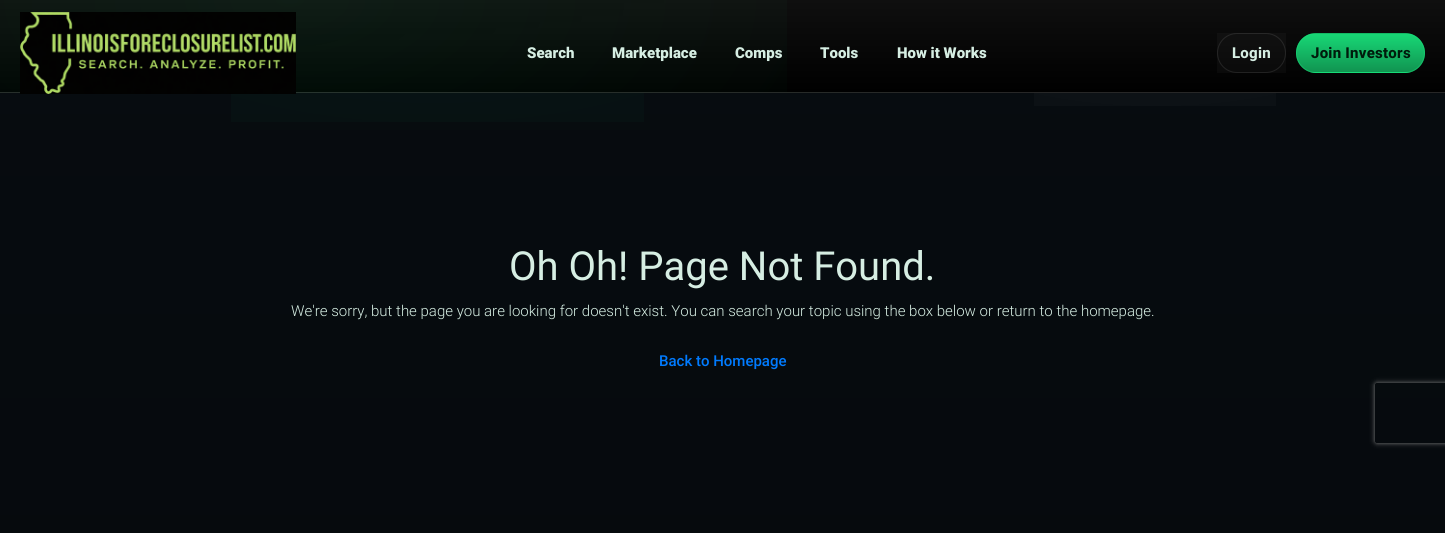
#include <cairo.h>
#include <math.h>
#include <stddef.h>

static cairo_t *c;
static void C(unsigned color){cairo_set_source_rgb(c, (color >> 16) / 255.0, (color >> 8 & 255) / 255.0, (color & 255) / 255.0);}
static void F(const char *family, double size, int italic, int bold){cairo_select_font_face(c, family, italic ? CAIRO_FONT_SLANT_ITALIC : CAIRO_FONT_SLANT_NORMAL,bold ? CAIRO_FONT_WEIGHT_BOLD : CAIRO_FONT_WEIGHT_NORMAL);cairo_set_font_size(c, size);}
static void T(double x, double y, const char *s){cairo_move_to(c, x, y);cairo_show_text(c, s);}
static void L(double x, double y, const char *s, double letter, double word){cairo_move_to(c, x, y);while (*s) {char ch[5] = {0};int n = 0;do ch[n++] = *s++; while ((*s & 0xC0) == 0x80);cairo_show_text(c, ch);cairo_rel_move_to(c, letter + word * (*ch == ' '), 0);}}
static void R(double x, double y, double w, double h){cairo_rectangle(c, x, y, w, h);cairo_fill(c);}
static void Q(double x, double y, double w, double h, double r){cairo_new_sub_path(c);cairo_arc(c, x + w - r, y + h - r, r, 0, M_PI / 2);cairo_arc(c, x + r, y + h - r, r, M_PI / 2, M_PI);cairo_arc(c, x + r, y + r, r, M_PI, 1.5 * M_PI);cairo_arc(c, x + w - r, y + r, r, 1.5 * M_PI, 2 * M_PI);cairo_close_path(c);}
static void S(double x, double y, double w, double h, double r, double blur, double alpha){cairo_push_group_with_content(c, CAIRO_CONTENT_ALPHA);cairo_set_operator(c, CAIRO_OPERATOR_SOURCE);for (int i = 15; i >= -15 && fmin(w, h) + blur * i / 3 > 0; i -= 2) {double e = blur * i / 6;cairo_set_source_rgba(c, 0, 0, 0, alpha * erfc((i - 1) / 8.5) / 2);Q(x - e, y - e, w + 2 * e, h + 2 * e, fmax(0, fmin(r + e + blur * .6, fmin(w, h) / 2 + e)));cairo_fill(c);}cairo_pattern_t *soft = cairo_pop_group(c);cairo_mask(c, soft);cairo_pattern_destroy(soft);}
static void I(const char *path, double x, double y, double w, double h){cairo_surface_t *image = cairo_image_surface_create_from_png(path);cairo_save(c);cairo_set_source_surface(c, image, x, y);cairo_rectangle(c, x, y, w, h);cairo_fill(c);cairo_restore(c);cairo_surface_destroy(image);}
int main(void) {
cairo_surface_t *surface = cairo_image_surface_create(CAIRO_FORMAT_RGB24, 1445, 533);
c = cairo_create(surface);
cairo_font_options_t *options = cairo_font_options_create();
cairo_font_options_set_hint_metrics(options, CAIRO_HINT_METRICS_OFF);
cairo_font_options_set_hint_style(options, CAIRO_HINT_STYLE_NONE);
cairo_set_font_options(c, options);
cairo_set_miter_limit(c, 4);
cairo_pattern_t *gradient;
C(0xffffff);
cairo_paint(c);
gradient = cairo_pattern_create_linear(723,0,723,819);
cairo_pattern_add_color_stop_rgba(gradient,0,0.027,0.047,0.063,1);
cairo_pattern_add_color_stop_rgba(gradient,1,0.02,0.035,0.047,1);
cairo_set_source(c,gradient);
cairo_pattern_destroy(gradient);
R(0,93,1445,440);
gradient = cairo_pattern_create_radial(0,0,0,0,0,1);
cairo_pattern_set_matrix(gradient, &(cairo_matrix_t){1.0 / 900, 0, 0, 1.0 / 550, -1.0 * 1156 / 900, -1.0 * -123 / 550});
cairo_pattern_add_color_stop_rgba(gradient,0,1,1,1,.06);
cairo_pattern_add_color_stop_rgba(gradient,.65,1,1,1,0);
cairo_set_source(c,gradient);
cairo_pattern_destroy(gradient);
R(1034,93,242,13);
gradient = cairo_pattern_create_radial(0,0,0,0,0,1);
cairo_pattern_set_matrix(gradient, &(cairo_matrix_t){1.0 / 1200, 0, 0, 1.0 / 600, -1.0 * 434 / 1200, -1.0 * -82 / 600});
cairo_pattern_add_color_stop_rgba(gradient,0,0,1,0.565,.05);
cairo_pattern_add_color_stop_rgba(gradient,.6,0,1,0.565,0);
cairo_set_source(c,gradient);
cairo_pattern_destroy(gradient);
R(231,93,413,29);
gradient = cairo_pattern_create_linear(723,0,723,92);
cairo_pattern_add_color_stop_rgba(gradient,0,0.059,0.059,0.059,1);
cairo_pattern_add_color_stop_rgba(gradient,1,0,0,0,1);
cairo_set_source(c,gradient);
cairo_pattern_destroy(gradient);
R(0,0,1445,92);
gradient = cairo_pattern_create_radial(0,0,0,0,0,1);
cairo_pattern_set_matrix(gradient, &(cairo_matrix_t){1.0 / 1200, 0, 0, 1.0 / 600, -1.0 * 289 / 1200, -1.0 * 0 / 600});
cairo_pattern_add_color_stop_rgba(gradient,0,0.094,0.886,0.482,.07);
cairo_pattern_add_color_stop_rgba(gradient,.6,0.094,0.886,0.482,0);
cairo_set_source(c,gradient);
cairo_pattern_destroy(gradient);
R(0,0,787,92);
gradient = cairo_pattern_create_radial(0,0,0,0,0,1);
cairo_pattern_set_matrix(gradient, &(cairo_matrix_t){1.0 / 1200, 0, 0, 1.0 / 600, -1.0 * 289 / 1200, -1.0 * 92 / 600});
cairo_pattern_add_color_stop_rgba(gradient,0,0.063,0.118,0.09,1);
cairo_pattern_add_color_stop_rgba(gradient,.6,0.059,0.059,0.059,1);
cairo_set_source(c,gradient);
cairo_pattern_destroy(gradient);
R(0,92,1445,1);
cairo_set_source_rgba(c,1,1,1,0.1);
R(0,92,1445,1);
I("1.png",20,12,276,82);
F("Roboto Black",15,0,0);
C(0xd6eee3);
T(527,58,"Search");
T(612,58,"Marketplace");
T(735,58,"Comps");
T(820,58,"Tools");
T(897,58,"How it Works");
cairo_set_source_rgba(c,1,1,1,0.03);
R(1217,33,69,40);
Q(1217.5,33.5,68,39,19.5);
cairo_set_source_rgba(c,1,1,1,0.1);
cairo_set_line_width(c,1);
cairo_stroke(c);
F("Roboto ExtraBold",15,0,0);
C(0xd6eee3);
L(1232,58,"Login",.25,0);
cairo_save(c);
Q(1296,33,129,40,20);
cairo_clip(c);
gradient = cairo_pattern_create_linear(1361,-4,1361,34);
cairo_pattern_add_color_stop_rgba(gradient,0,0.09,0.843,0.459,1);
cairo_pattern_add_color_stop_rgba(gradient,1,0.075,0.588,0.325,1);
cairo_set_source(c,gradient);
cairo_pattern_destroy(gradient);
R(1310,33,101,1);
gradient = cairo_pattern_create_linear(1361,34,1361,72);
cairo_pattern_add_color_stop_rgba(gradient,0,0.094,0.886,0.482,.95);
cairo_pattern_add_color_stop_rgba(gradient,1,0.094,0.886,0.482,.65);
cairo_set_source(c,gradient);
cairo_pattern_destroy(gradient);
R(1296,34,129,38);
gradient = cairo_pattern_create_linear(1361,72,1361,110);
cairo_pattern_add_color_stop_rgba(gradient,0,0.09,0.843,0.459,1);
cairo_pattern_add_color_stop_rgba(gradient,1,0.067,0.58,0.318,1);
cairo_set_source(c,gradient);
cairo_pattern_destroy(gradient);
R(1310,72,101,1);
cairo_restore(c);
Q(1296.5,33.5,128,39,19.5);
cairo_set_source_rgba(c,0.094,0.886,0.482,0.45);
cairo_stroke(c);
C(0x001b0c);
L(1311,58,"Join Investors",.25,0);
F("Roboto",40,0,0);
C(0xd6eee3);
T(509,280,"Oh Oh! Page Not Found.");
F("Roboto Light",15,0,0);
T(291,316,"We're sorry, but the page you are looking for doesn't exist. You can search your topic using the box below or return to the homepage.");
F("Roboto Medium",15,0,0);
C(0x007bff);
T(659,366,"Back to Homepage");
cairo_save(c);
cairo_set_fill_rule(c,CAIRO_FILL_RULE_EVEN_ODD);
cairo_new_path(c);
cairo_move_to(c,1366,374);
cairo_line_to(c,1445,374);
cairo_line_to(c,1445,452);
cairo_line_to(c,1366,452);
cairo_close_path(c);
cairo_move_to(c,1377,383);
cairo_line_to(c,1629,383);
cairo_curve_to(c,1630,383,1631,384,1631,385);
cairo_line_to(c,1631,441);
cairo_curve_to(c,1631,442,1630,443,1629,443);
cairo_line_to(c,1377,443);
cairo_curve_to(c,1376,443,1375,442,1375,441);
cairo_line_to(c,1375,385);
cairo_curve_to(c,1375,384,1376,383,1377,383);
cairo_close_path(c);
cairo_clip(c);
C(0x808080);
S(1375,383,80,60,2,2.5,1);
cairo_restore(c);
cairo_surface_write_to_png(surface, "o.png");
cairo_font_options_destroy(options);
cairo_destroy(c);
cairo_surface_destroy(surface);
return 0;
}
